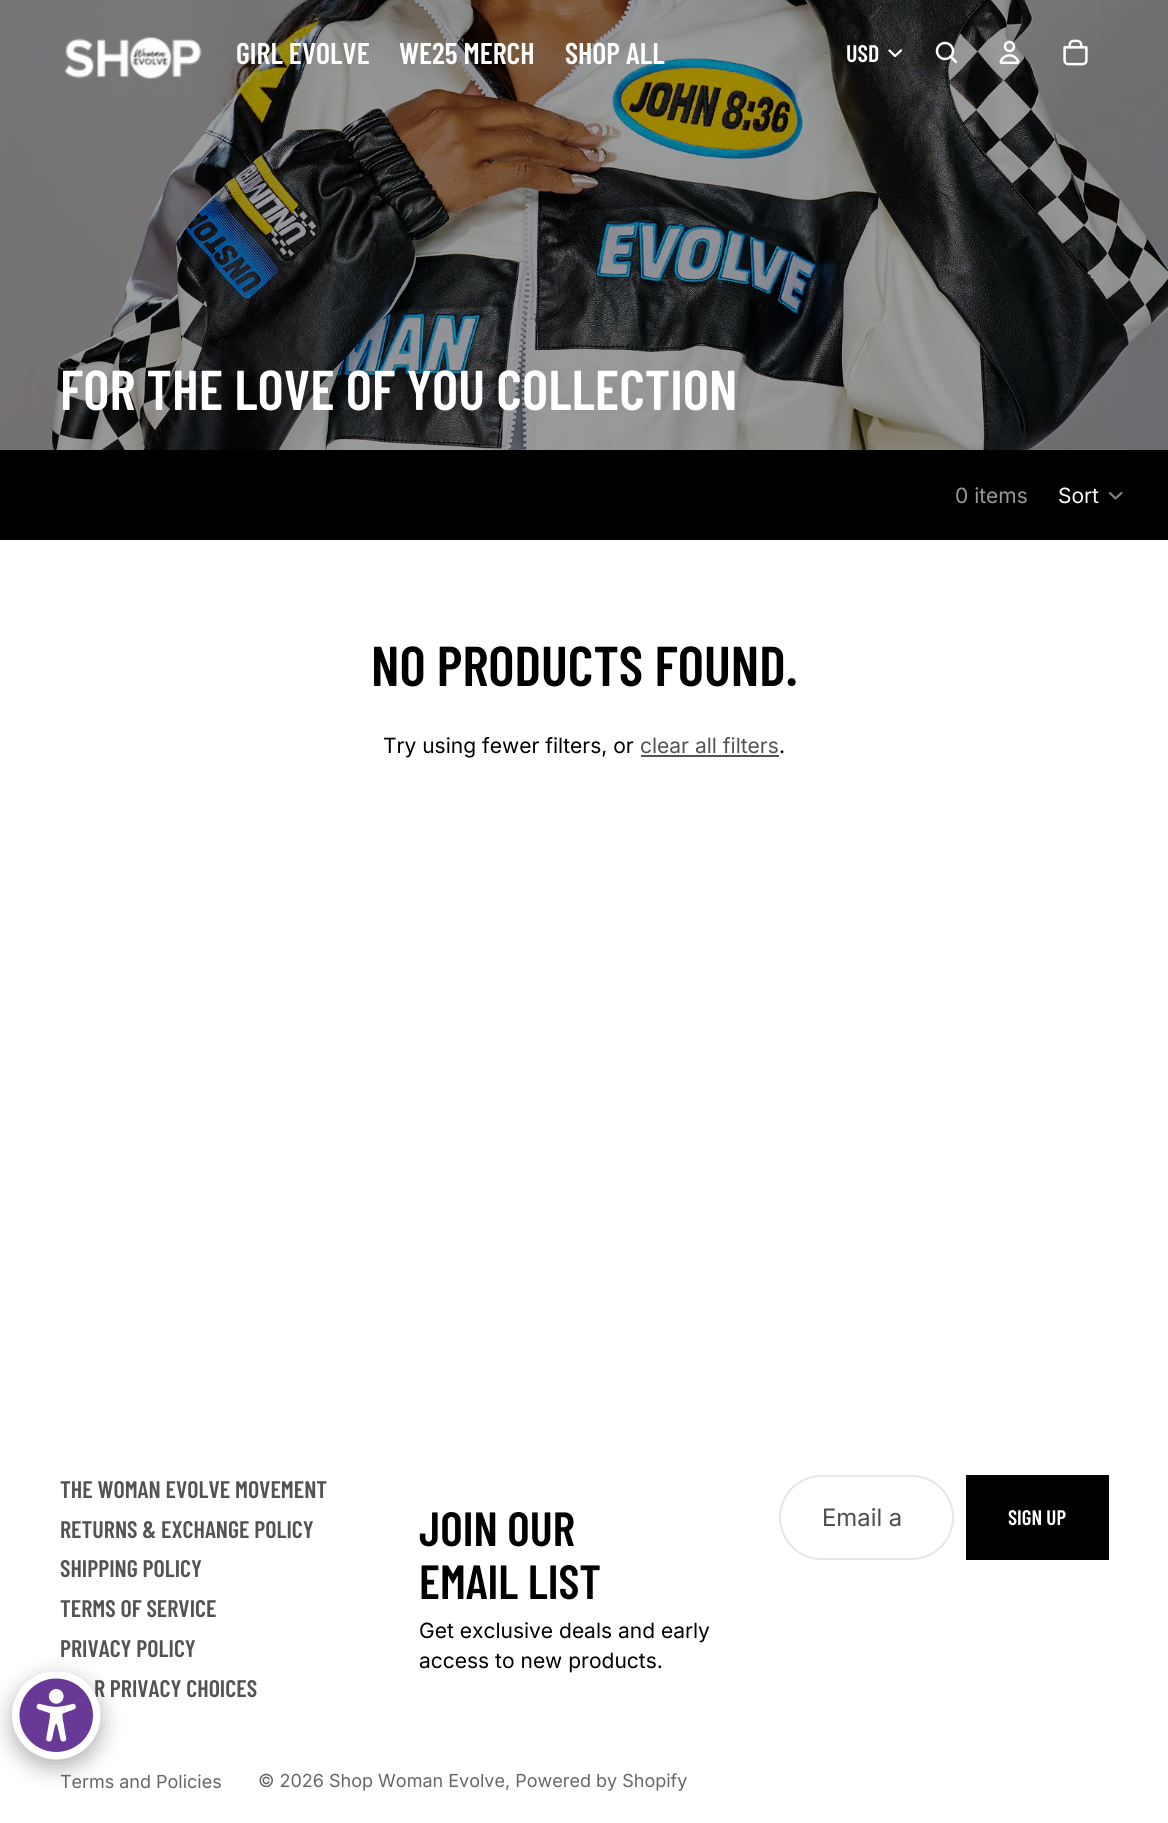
#include <cairo.h>
#include <math.h>
#include <stddef.h>

static cairo_t *c;
static void C(unsigned color){cairo_set_source_rgb(c, (color >> 16) / 255.0, (color >> 8 & 255) / 255.0, (color & 255) / 255.0);}
static void F(const char *family, double size, int italic, int bold){cairo_select_font_face(c, family, italic ? CAIRO_FONT_SLANT_ITALIC : CAIRO_FONT_SLANT_NORMAL,bold ? CAIRO_FONT_WEIGHT_BOLD : CAIRO_FONT_WEIGHT_NORMAL);cairo_set_font_size(c, size);}
static void T(double x, double y, const char *s){cairo_move_to(c, x, y);cairo_show_text(c, s);}
static void R(double x, double y, double w, double h){cairo_rectangle(c, x, y, w, h);cairo_fill(c);}
static void Q(double x, double y, double w, double h, double r){cairo_new_sub_path(c);cairo_arc(c, x + w - r, y + h - r, r, 0, M_PI / 2);cairo_arc(c, x + r, y + h - r, r, M_PI / 2, M_PI);cairo_arc(c, x + r, y + r, r, M_PI, 1.5 * M_PI);cairo_arc(c, x + w - r, y + r, r, 1.5 * M_PI, 2 * M_PI);cairo_close_path(c);}
static void S(double x, double y, double w, double h, double r, double blur, double alpha){cairo_push_group_with_content(c, CAIRO_CONTENT_ALPHA);cairo_set_operator(c, CAIRO_OPERATOR_SOURCE);for (int i = 15; i >= -15 && fmin(w, h) + blur * i / 3 > 0; i -= 2) {double e = blur * i / 6;cairo_set_source_rgba(c, 0, 0, 0, alpha * erfc((i - 1) / 8.5) / 2);Q(x - e, y - e, w + 2 * e, h + 2 * e, fmax(0, fmin(r + e + blur * .6, fmin(w, h) / 2 + e)));cairo_fill(c);}cairo_pattern_t *soft = cairo_pop_group(c);cairo_mask(c, soft);cairo_pattern_destroy(soft);}
static void I(const char *path, double x, double y, double w, double h){cairo_surface_t *image = cairo_image_surface_create_from_png(path);cairo_save(c);cairo_set_source_surface(c, image, x, y);cairo_rectangle(c, x, y, w, h);cairo_fill(c);cairo_restore(c);cairo_surface_destroy(image);}
int main(void) {
cairo_surface_t *surface = cairo_image_surface_create(CAIRO_FORMAT_RGB24, 1168, 1823);
c = cairo_create(surface);
cairo_font_options_t *options = cairo_font_options_create();
cairo_font_options_set_hint_metrics(options, CAIRO_HINT_METRICS_OFF);
cairo_font_options_set_hint_style(options, CAIRO_HINT_STYLE_NONE);
cairo_set_font_options(c, options);
cairo_set_miter_limit(c, 4);
C(0xffffff);
cairo_paint(c);
I("4.png",0,0,1168,450);
I("1.png",64,37,138,43);
F("Barlow Condensed SemiBold",30,0,0);
C(0xffffff);
T(236,64,"GIRL EVOLVE");
T(399,64,"WE25 MERCH");
T(565,64,"SHOP ALL");
F("Barlow Condensed SemiBold",24,0,0);
T(846,62,"USD");
cairo_new_path(c);
cairo_move_to(c,901,50.5);
cairo_line_to(c,895,56);
cairo_line_to(c,889.5,50.5);
cairo_set_line_width(c,2.2);
cairo_set_line_cap(c,CAIRO_LINE_CAP_ROUND);
cairo_set_line_join(c,CAIRO_LINE_JOIN_ROUND);
cairo_stroke(c);
cairo_arc(c,945,51,8,0,2 * M_PI);
cairo_set_line_width(c,2.5);
cairo_set_line_cap(c,CAIRO_LINE_CAP_BUTT);
cairo_set_line_join(c,CAIRO_LINE_JOIN_MITER);
cairo_stroke(c);
cairo_new_path(c);
cairo_move_to(c,950.5,56.5);
cairo_line_to(c,956,62);
cairo_set_line_cap(c,CAIRO_LINE_CAP_ROUND);
cairo_set_line_join(c,CAIRO_LINE_JOIN_ROUND);
cairo_stroke(c);
I("2.png",999,40,21,25);
I("3.png",1063,39,25,27);
F("Barlow Condensed SemiBold",56.1,0,0);
T(60,410,"FOR THE LOVE OF YOU COLLECTION");
C(0x000000);
R(0,450,1168,90);
F("Inter",21,0,0);
C(0x999999);
T(955,503,"0 items");
C(0xffffff);
T(1058,503,"Sort");
cairo_new_path(c);
cairo_move_to(c,1121.5,493);
cairo_line_to(c,1115.5,498.5);
cairo_line_to(c,1110,493);
C(0x808080);
cairo_set_line_width(c,2.2);
cairo_stroke(c);
F("Barlow Condensed SemiBold",56.1,0,0);
C(0x000000);
T(371,686,"NO PRODUCTS FOUND.");
F("Inter",21,0,0);
T(383,753,"Try using fewer filters, or");
C(0x515355);
T(640,753,"clear all filters");
R(641,755,138,2);
C(0x000000);
T(779,753,".");
F("Barlow Condensed SemiBold",24,0,0);
C(0x515355);
T(60,1498,"THE WOMAN EVOLVE MOVEMENT");
T(60,1538,"RETURNS & EXCHANGE POLICY");
T(60,1577,"SHIPPING POLICY");
T(60,1617,"TERMS OF SERVICE");
T(60,1657,"PRIVACY POLICY");
T(94,1697,"R PRIVACY CHOICES");
F("Barlow Condensed SemiBold",48,0,0);
C(0x000000);
T(419,1546,"JOIN OUR");
T(419,1599,"EMAIL LIST");
F("Inter",21,0,0);
T(419,1638,"Get exclusive deals and early");
T(419,1668,"access to new products.");
Q(780,1476,173,83,41.5);
C(0xe6e6e6);
cairo_set_line_width(c,2);
cairo_set_line_cap(c,CAIRO_LINE_CAP_BUTT);
cairo_set_line_join(c,CAIRO_LINE_JOIN_MITER);
cairo_stroke(c);
F("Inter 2",24,0,0);
C(0x4d4d4d);
T(822,1526,"Email a");
C(0x000000);
R(966,1475,143,85);
F("Barlow Condensed SemiBold",21,0,0);
C(0xffffff);
T(1008,1525,"SIGN UP");
F("Inter",18,0,0);
C(0x666666);
T(60,1788,"Terms and Policies");
T(258,1787,"© 2026 Shop Woman Evolve, Powered by Shopify");
C(0x000000);
S(12,1679,89,88,44,11,.3);
I("5.png",12,1672,89,88);
cairo_surface_write_to_png(surface, "o.png");
cairo_font_options_destroy(options);
cairo_destroy(c);
cairo_surface_destroy(surface);
return 0;
}
